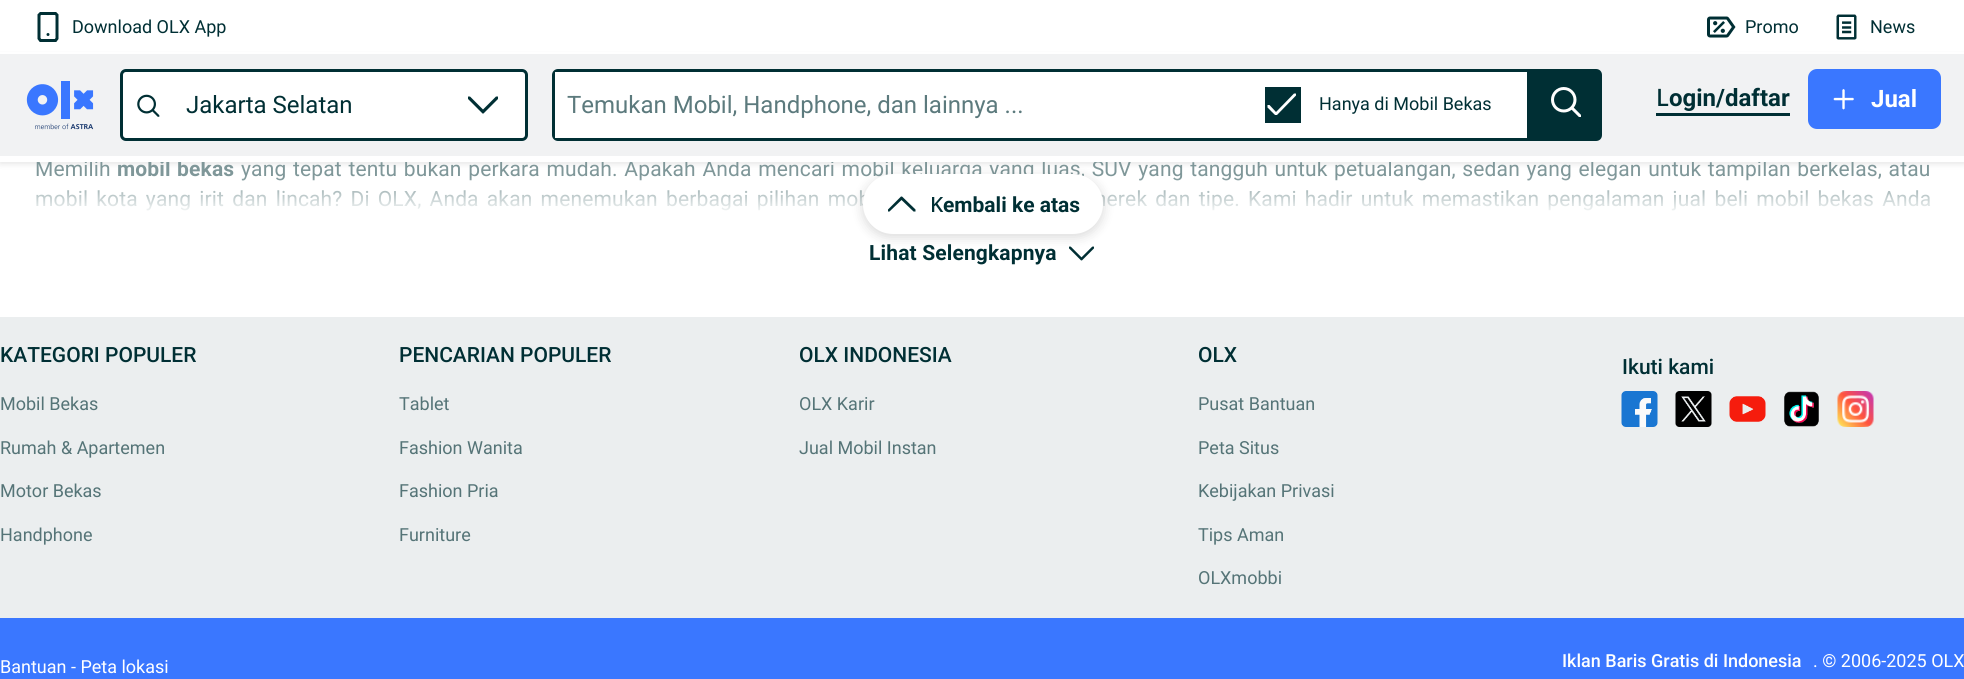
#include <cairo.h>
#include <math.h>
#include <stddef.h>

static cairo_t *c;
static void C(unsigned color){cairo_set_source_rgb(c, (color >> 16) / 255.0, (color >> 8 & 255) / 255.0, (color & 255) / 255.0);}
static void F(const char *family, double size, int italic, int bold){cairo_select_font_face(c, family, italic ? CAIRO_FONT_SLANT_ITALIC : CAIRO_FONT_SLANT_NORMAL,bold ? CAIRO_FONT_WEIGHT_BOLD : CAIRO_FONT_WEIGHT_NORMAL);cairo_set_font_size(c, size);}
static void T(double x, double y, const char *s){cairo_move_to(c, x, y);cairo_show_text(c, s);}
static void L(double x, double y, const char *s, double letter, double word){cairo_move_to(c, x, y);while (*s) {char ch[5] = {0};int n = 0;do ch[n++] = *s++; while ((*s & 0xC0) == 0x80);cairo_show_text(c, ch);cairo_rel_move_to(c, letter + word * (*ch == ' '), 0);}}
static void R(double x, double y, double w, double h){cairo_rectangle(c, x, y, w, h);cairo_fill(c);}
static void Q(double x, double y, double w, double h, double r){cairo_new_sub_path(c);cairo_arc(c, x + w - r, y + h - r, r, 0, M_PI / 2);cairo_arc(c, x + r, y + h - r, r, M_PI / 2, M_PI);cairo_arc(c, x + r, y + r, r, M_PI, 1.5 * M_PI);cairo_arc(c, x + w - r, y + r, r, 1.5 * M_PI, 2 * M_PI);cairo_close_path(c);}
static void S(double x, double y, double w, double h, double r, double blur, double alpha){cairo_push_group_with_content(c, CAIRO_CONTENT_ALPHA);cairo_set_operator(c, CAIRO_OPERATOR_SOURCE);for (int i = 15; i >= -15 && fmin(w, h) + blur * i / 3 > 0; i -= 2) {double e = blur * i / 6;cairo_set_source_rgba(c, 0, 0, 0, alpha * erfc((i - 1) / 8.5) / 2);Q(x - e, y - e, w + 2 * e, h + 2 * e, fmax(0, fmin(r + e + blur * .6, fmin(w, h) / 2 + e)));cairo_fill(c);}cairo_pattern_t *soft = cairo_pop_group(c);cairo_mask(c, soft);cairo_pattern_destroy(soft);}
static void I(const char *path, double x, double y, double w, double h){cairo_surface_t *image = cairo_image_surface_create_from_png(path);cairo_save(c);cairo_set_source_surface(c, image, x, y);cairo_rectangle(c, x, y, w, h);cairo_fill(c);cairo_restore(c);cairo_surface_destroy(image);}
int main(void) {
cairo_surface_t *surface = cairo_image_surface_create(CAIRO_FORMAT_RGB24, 1964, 679);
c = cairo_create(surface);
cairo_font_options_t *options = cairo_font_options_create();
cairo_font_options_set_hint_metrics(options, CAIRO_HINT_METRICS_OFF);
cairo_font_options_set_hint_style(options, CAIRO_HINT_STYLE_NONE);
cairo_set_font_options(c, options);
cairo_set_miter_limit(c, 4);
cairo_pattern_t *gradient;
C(0xffffff);
cairo_paint(c);
C(0x000000);
S(0,56,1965,108,0,3,.1);
F("Roboto",21,0,0);
C(0x7f9799);
L(35,176,"Memilih",.15,0);
F("Roboto",21,0,1);
L(117,176,"mobil bekas",.15,1);
F("Roboto",21,0,0);
L(241,176,"yang tepat tentu bukan perkara mudah. Apakah Anda mencari mobil keluarga yang luas, SUV yang tangguh untuk petualangan, sedan yang elegan untuk tampilan berkelas, atau",.15,1.25);
L(35,206,"mobil kota yang irit dan lincah? Di OLX, Anda akan menemukan berbagai pilihan mob",.15,2.75);
L(1088,206,"merek dan tipe. Kami hadir untuk memastikan pengalaman jual beli mobil bekas Anda",.15,2.75);
gradient = cairo_pattern_create_linear(983,177,983,215);
cairo_pattern_add_color_stop_rgba(gradient,0,1,1,1,0);
cairo_pattern_add_color_stop_rgba(gradient,1,1,1,1,1);
cairo_set_source(c,gradient);
cairo_pattern_destroy(gradient);
R(35,178,1895,33);
I("8.png",1069,246,25,15);
C(0x000000);
S(863,177,240,60,30,6,.15);
C(0xffffff);
R(0,156,1964,6);
R(0,52,1964,2);
I("1.png",37,12,22,30);
F("Roboto",18,0,0);
C(0x002f34);
T(72,33,"Download OLX App");
I("2.png",1707,16,29,22);
T(1745,33,"Promo");
I("3.png",1836,14,21,26);
T(1870,33,"News");
C(0xf1f2f3);
R(0,54,1964,102);
I("4.png",26,81,68,49);
C(0xffffff);
Q(121.5,70.5,405,69,4.5);
cairo_fill_preserve(c);
C(0x002f34);
cairo_set_line_width(c,3);
cairo_stroke(c);
I("5.png",137,94,23,23);
F("Roboto",24,0,0);
T(186,113,"Jakarta Selatan");
cairo_set_fill_rule(c,CAIRO_FILL_RULE_EVEN_ODD);
cairo_new_path(c);
cairo_move_to(c,468,96.5);
cairo_line_to(c,470,96.5);
cairo_line_to(c,483,109.5);
cairo_line_to(c,496,96.5);
cairo_line_to(c,498,96.5);
cairo_line_to(c,498,99);
cairo_line_to(c,483.5,113.5);
cairo_line_to(c,482.5,113.5);
cairo_line_to(c,468,99);
cairo_close_path(c);
cairo_fill(c);
cairo_new_path(c);
cairo_move_to(c,558,70.5);
cairo_line_to(c,1528.5,70.5);
cairo_line_to(c,1528.5,139.5);
cairo_line_to(c,558,139.5);
cairo_curve_to(c,555.5,139.5,553.5,137.5,553.5,135);
cairo_line_to(c,553.5,75);
cairo_curve_to(c,553.5,72.5,555.5,70.5,558,70.5);
cairo_close_path(c);
cairo_stroke(c);
C(0xffffff);
R(555,72,972,66);
C(0x5c7a7d);
T(567,113,"Temukan Mobil, Handphone, dan lainnya ...");
C(0x002f34);
R(1265,87,36,36);
C(0xffffff);
cairo_new_path(c);
cairo_move_to(c,1294,93.5);
cairo_line_to(c,1276,112);
cairo_line_to(c,1269.5,105);
cairo_line_to(c,1267.5,105);
cairo_line_to(c,1267.5,107.5);
cairo_line_to(c,1275,115);
cairo_line_to(c,1277,115);
cairo_line_to(c,1296,95.5);
cairo_line_to(c,1296,93.5);
cairo_close_path(c);
cairo_fill(c);
F("Roboto",18,0,0);
C(0x002f34);
T(1319,110,"Hanya di Mobil Bekas");
cairo_new_path(c);
cairo_move_to(c,1530,69);
cairo_line_to(c,1596,69);
cairo_curve_to(c,1599.5,69,1602,71.5,1602,75);
cairo_line_to(c,1602,135);
cairo_curve_to(c,1602,138.5,1599.5,141,1596,141);
cairo_line_to(c,1530,141);
cairo_close_path(c);
cairo_fill(c);
I("6.png",1551,87,30,30);
R(1656,113,134,3);
F("Noto Sans Medium",24,0,0);
T(1656,106,"L");
F("Roboto",24,0,1);
T(1669,106,"ogin/daftar");
C(0x3a77ff);
Q(1808,69,133,60,9);
cairo_fill(c);
I("7.png",1833,89,21,21);
C(0xffffff);
T(1871,107,"Jual");
F("Roboto",21,0,1);
C(0x002f34);
L(869,260,"Lihat Selengkapnya",.15,0);
C(0xebeeef);
R(0,317,1964,301);
F("Roboto Medium",21,0,0);
C(0x002f34);
T(0,362,"KATEGORI POPULER");
F("Roboto",18,0,0);
C(0x557477);
T(0,410,"Mobil Bekas");
T(0,454,"Rumah & Apartemen");
T(0,497,"Motor Bekas");
T(0,541,"Handphone");
F("Roboto Medium",21,0,0);
C(0x002f34);
T(399,362,"PENCARIAN POPULER");
F("Roboto",18,0,0);
C(0x557477);
T(399,410,"Tablet");
T(399,454,"Fashion Wanita");
T(399,497,"Fashion Pria");
T(399,541,"Furniture");
F("Roboto Medium",21,0,0);
C(0x002f34);
T(799,362,"OLX INDONESIA");
F("Roboto",18,0,0);
C(0x557477);
T(799,410,"OLX Karir");
T(799,454,"Jual Mobil Instan");
F("Roboto Medium",21,0,0);
C(0x002f34);
T(1198,362,"OLX");
F("Roboto",18,0,0);
C(0x557477);
T(1198,410,"Pusat Bantuan");
T(1198,454,"Peta Situs");
T(1198,497,"Kebijakan Privasi");
T(1198,541,"Tips Aman");
T(1198,584,"OLXmobbi");
F("Roboto Medium",21,0,0);
C(0x002f34);
T(1622,374,"Ikuti kami");
I("9.png",1621,391,37,36);
I("10.png",1675,391,37,36);
I("11.png",1729,396,37,26);
I("12.png",1784,391,35,36);
I("13.png",1837,391,37,36);
C(0x3a77ff);
R(0,618,1964,61);
F("Roboto",18,0,0);
C(0xffffff);
T(0,673,"Bantuan - Peta lokasi");
F("Roboto Medium",18,0,0);
T(1562,667,"Iklan Baris Gratis di Indonesia");
F("Roboto",18,0,0);
T(1813,667,". © 2006-2025 OLX");
Q(863,174,240,60,30);
cairo_fill(c);
C(0x002f34);
cairo_new_path(c);
cairo_move_to(c,888,211.5);
cairo_line_to(c,889.5,211.5);
cairo_line_to(c,901.5,200);
cairo_line_to(c,913.5,211.5);
cairo_line_to(c,915.5,211.5);
cairo_line_to(c,915.5,209.5);
cairo_line_to(c,902,196.5);
cairo_line_to(c,901,196.5);
cairo_line_to(c,888,209.5);
cairo_close_path(c);
cairo_fill(c);
F("Noto Sans Medium",21,0,0);
T(930,212,"K");
F("Roboto",21,0,1);
T(943,212,"embali ke atas");
cairo_surface_write_to_png(surface, "o.png");
cairo_font_options_destroy(options);
cairo_destroy(c);
cairo_surface_destroy(surface);
return 0;
}
